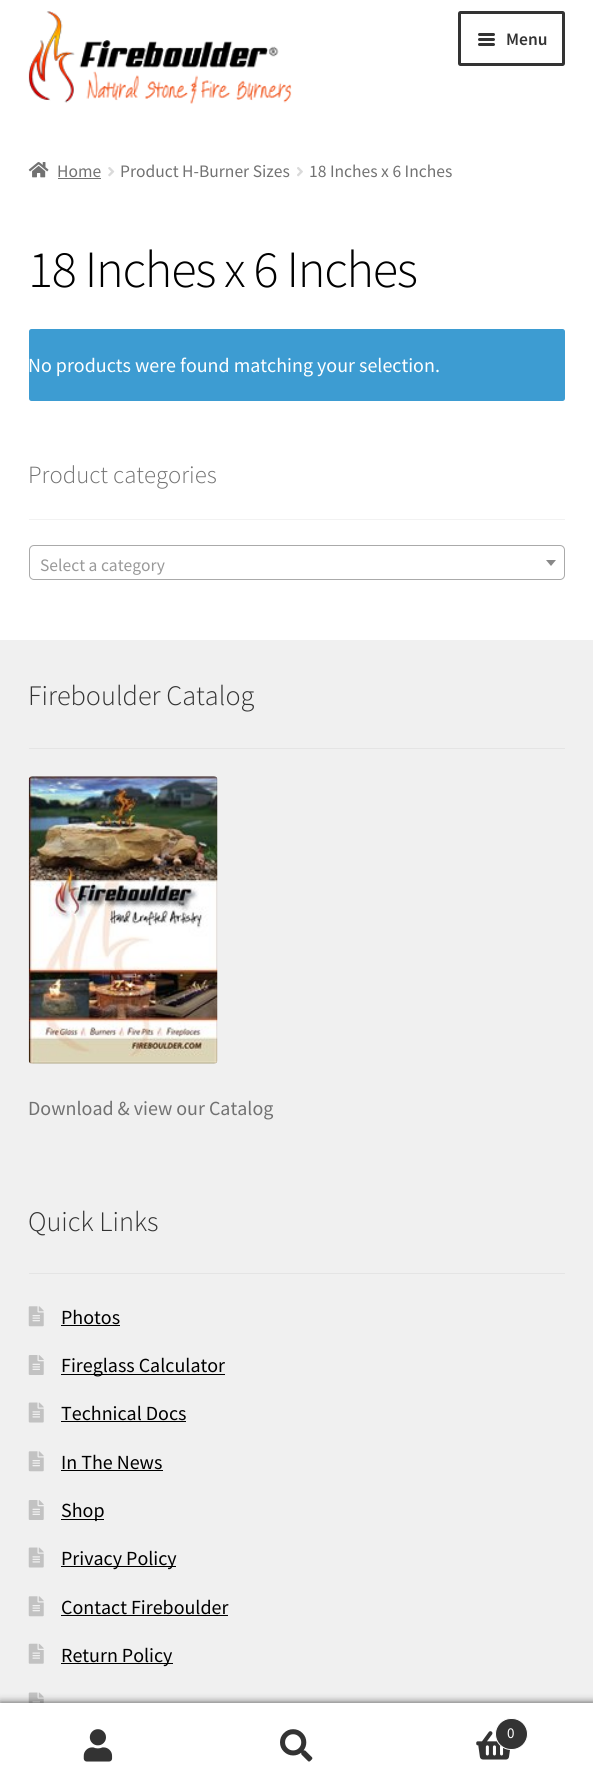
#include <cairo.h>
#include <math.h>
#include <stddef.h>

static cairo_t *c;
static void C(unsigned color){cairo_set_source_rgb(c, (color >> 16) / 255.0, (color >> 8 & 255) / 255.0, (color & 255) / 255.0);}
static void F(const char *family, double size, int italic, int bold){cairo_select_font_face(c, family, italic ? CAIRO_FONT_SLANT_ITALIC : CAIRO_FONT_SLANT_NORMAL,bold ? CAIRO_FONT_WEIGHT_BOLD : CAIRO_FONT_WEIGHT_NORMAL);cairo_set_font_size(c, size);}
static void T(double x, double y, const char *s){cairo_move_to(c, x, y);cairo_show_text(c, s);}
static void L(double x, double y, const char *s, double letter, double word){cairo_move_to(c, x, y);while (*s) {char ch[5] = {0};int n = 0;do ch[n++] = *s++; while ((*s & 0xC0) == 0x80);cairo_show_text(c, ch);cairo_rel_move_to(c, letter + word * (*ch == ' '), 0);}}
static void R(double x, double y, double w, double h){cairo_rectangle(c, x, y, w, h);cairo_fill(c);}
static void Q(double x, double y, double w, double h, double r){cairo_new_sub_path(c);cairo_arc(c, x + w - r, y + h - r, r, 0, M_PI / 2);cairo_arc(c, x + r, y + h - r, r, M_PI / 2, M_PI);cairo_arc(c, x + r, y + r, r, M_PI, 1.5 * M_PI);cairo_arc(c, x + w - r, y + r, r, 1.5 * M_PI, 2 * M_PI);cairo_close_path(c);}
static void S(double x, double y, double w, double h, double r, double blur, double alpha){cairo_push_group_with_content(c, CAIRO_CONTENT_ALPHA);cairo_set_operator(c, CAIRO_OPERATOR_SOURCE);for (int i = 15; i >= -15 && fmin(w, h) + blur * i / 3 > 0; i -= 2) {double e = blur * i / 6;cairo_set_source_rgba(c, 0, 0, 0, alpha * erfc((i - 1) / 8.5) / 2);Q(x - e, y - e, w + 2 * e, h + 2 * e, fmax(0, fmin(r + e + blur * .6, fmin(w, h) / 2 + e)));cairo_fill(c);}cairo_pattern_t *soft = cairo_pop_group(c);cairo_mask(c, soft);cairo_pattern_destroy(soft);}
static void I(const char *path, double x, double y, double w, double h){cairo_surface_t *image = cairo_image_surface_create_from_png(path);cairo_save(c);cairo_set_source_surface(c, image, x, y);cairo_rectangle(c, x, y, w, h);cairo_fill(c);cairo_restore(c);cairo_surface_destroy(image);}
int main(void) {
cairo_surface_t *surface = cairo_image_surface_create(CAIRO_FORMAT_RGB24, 593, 1788);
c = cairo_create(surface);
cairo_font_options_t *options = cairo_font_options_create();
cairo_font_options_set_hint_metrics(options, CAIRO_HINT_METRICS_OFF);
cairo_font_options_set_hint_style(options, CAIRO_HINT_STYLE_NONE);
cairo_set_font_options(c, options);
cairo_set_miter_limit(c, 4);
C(0xffffff);
cairo_paint(c);
I("1.png",28,11,264,93);
Q(459.5,12.5,104,52,1);
C(0x333333);
cairo_set_line_width(c,3);
cairo_stroke(c);
Q(478,33,17,3,1.5);
cairo_fill(c);
Q(478,38,17,3,1.5);
cairo_fill(c);
F("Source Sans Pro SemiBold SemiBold",17.5,0,0);
T(506,45,"Menu");
Q(478,43,17,3,1.5);
cairo_fill(c);
I("2.png",28,162,21,16);
F("Source Sans Pro",17.5,0,0);
C(0x727272);
T(57,177,"Home");
R(58,178,43,1);
I("3.png",108,167,7,10);
T(120,177,"Product H-Burner Sizes");
I("4.png",297,167,6,10);
T(309,177,"18 Inches x 6 Inches");
F("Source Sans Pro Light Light",52.25,0,0);
C(0x000000);
L(28,287,"18 Inches x 6 Inches",-1.25,0);
C(0x3d9cd2);
Q(29,329,536,72,2.5);
cairo_fill(c);
F("Source Sans Pro",20,0,0);
C(0xffffff);
T(28,372,"No products were found matching your selection.");
C(0xf2f2f2);
R(29,519,536,1);
F("Source Sans Pro Light Light",24.75,0,0);
C(0x727272);
T(28,483,"Product categories");
Q(29.5,545.5,535,34,4.5);
C(0xaaaaaa);
cairo_set_line_width(c,1);
cairo_stroke(c);
F("Source Sans Pro",17.5,0,0);
C(0x999999);
T(40,571,"Select a category");
C(0x888888);
cairo_new_path(c);
cairo_move_to(c,546,560);
cairo_line_to(c,556,560);
cairo_line_to(c,551,566);
cairo_close_path(c);
cairo_fill(c);
C(0xf0f0f0);
R(0,640,593,1063);
C(0xe4e4e4);
R(29,748,536,1);
F("Source Sans Pro Light Light",28.25,0,0);
C(0x333333);
T(28,705,"Fireboulder Catalog");
I("5.png",28,776,190,288);
F("Source Sans Pro",20,0,0);
C(0x727272);
T(28,1115,"Download & view our Catalog");
C(0xe4e4e4);
R(29,1273,536,1);
F("Source Sans Pro Light Light",28.25,0,0);
C(0x333333);
T(28,1231,"Quick Links");
I("6.png",28,1306,16,21);
F("Source Sans Pro",20,0,0);
C(0x000000);
T(61,1324,"Photos");
R(61,1325,59,1);
I("7.png",28,1355,16,20);
R(61,1374,164,1);
T(61,1372,"Fireglass Calculator");
I("8.png",28,1402,16,21);
T(61,1420,"Technical Docs");
R(61,1421,125,1);
I("6.png",28,1451,16,21);
T(61,1469,"In The News");
R(61,1470,102,1);
I("7.png",28,1500,16,20);
R(61,1519,43,1);
T(61,1517,"Shop");
I("8.png",28,1547,16,21);
R(61,1566,115,1);
T(61,1565,"Privacy Policy");
I("6.png",28,1596,16,21);
T(61,1614,"Contact Fireboulder");
R(61,1615,167,1);
I("9.png",28,1643,16,21);
R(61,1663,112,1);
T(61,1662,"Return Policy");
I("10.png",28,1692,16,11);
C(0x000000);
S(0,1703,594,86,0,4,.7);
C(0xffffff);
R(0,1703,593,1);
R(0,1704,593,84);
I("11.png",83,1729,30,33);
I("12.png",280,1729,33,33);
I("13.png",476,1731,35,29);
C(0x333333);
Q(495.5,1718.5,32,31,15.5);
cairo_fill_preserve(c);
C(0xffffff);
cairo_stroke(c);
F("Source Sans Pro",15,0,0);
T(507,1738,"0");
cairo_surface_write_to_png(surface, "o.png");
cairo_font_options_destroy(options);
cairo_destroy(c);
cairo_surface_destroy(surface);
return 0;
}
